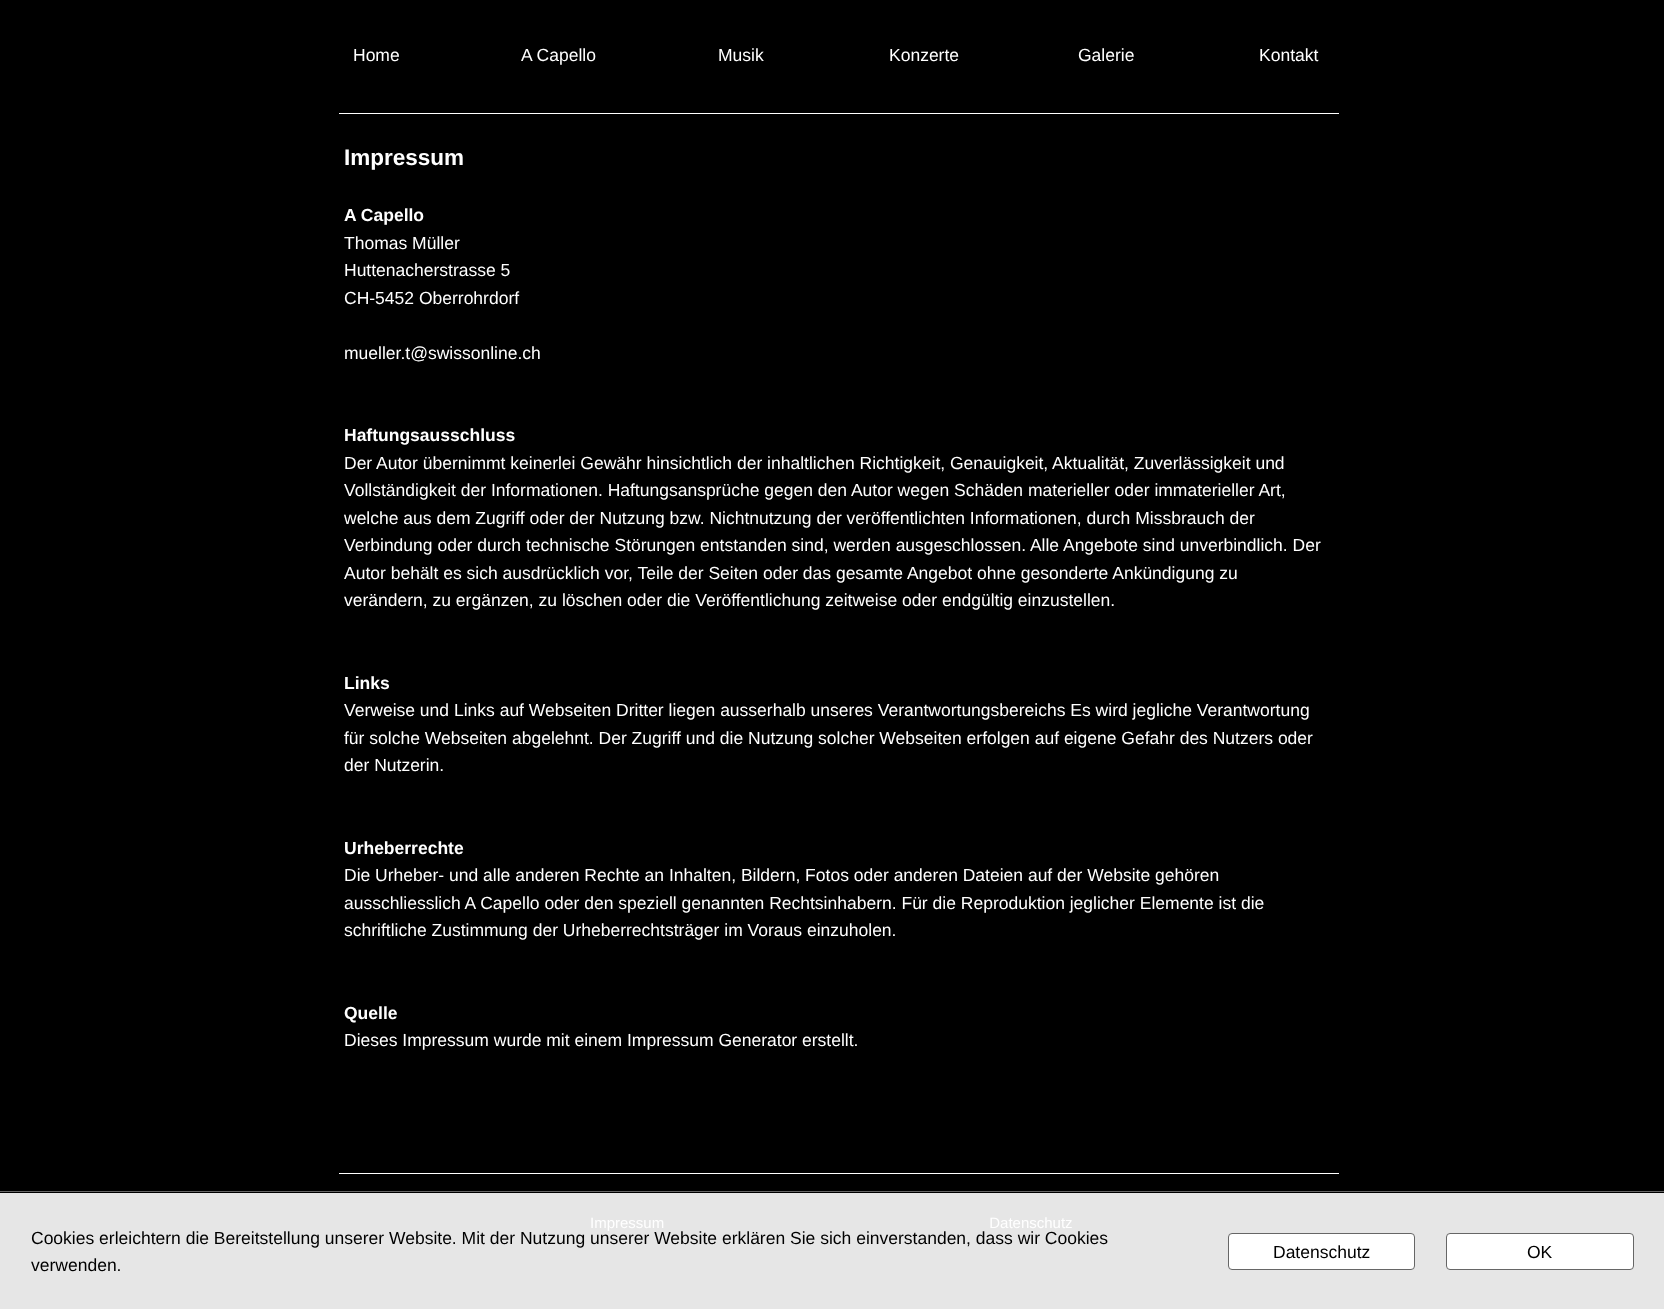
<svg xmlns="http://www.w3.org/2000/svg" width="1664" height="1309">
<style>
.a{font:17.5px Liberation Sans;fill:#fff}
.b{font:bold 22.5px Liberation Sans;fill:#fff}
.c{font:bold 17.5px Liberation Sans;fill:#fff}
.d{font:15px Liberation Sans;fill:#fff}
.e{font:17.5px Liberation Sans;fill:#000}
</style>
<rect width="100%" height="100%" fill="#000"/>
<path fill="#e6e6e6" d="M0 1193h1664v116H0z"/>
<path fill="#fff" d="M339 113h1000v1H339z"/>
<path fill="#fff" d="M339 1173h1000v1H339z"/>
<path fill="#666" d="M0 1191h1664v1H0z"/>
<rect fill="#fff" stroke="#666" x="1228.5" y="1233.5" width="186" height="36" rx="3.5"/>
<rect fill="#fff" stroke="#666" x="1446.5" y="1233.5" width="187" height="36" rx="3.5"/>
<text class="a" x="353" y="61">Home</text>
<text class="a" x="521" y="61">A Capello</text>
<text class="a" x="718" y="61">Musik</text>
<text class="a" x="889" y="61">Konzerte</text>
<text class="a" x="1078" y="61">Galerie</text>
<text class="a" x="1259" y="61">Kontakt</text>
<text class="b" x="344" y="165">Impressum</text>
<text class="c" x="344" y="221">A Capello</text>
<text class="a" x="344" y="249">Thomas Müller</text>
<text class="a" x="344" y="276">Huttenacherstrasse 5</text>
<text class="a" x="344" y="304">CH-5452 Oberrohrdorf</text>
<text class="a" x="344" y="359">mueller.t@swissonline.ch</text>
<text class="c" x="344" y="441">Haftungsausschluss</text>
<text class="a" x="344" y="469">Der Autor übernimmt keinerlei Gewähr hinsichtlich der inhaltlichen Richtigkeit, Genauigkeit, Aktualität, Zuverlässigkeit und</text>
<text class="a" x="344" y="496">Vollständigkeit der Informationen. Haftungsansprüche gegen den Autor wegen Schäden materieller oder immaterieller Art,</text>
<text class="a" x="344" y="524">welche aus dem Zugriff oder der Nutzung bzw. Nichtnutzung der veröffentlichten Informationen, durch Missbrauch der</text>
<text class="a" x="344" y="551">Verbindung oder durch technische Störungen entstanden sind, werden ausgeschlossen. Alle Angebote sind unverbindlich. Der</text>
<text class="a" x="344" y="579">Autor behält es sich ausdrücklich vor, Teile der Seiten oder das gesamte Angebot ohne gesonderte Ankündigung zu</text>
<text class="a" x="344" y="606">verändern, zu ergänzen, zu löschen oder die Veröffentlichung zeitweise oder endgültig einzustellen.</text>
<text class="c" x="344" y="689">Links</text>
<text class="a" x="344" y="716">Verweise und Links auf Webseiten Dritter liegen ausserhalb unseres Verantwortungsbereichs Es wird jegliche Verantwortung</text>
<text class="a" x="344" y="744">für solche Webseiten abgelehnt. Der Zugriff und die Nutzung solcher Webseiten erfolgen auf eigene Gefahr des Nutzers oder</text>
<text class="a" x="344" y="771">der Nutzerin.</text>
<text class="c" x="344" y="854">Urheberrechte</text>
<text class="a" x="344" y="881">Die Urheber- und alle anderen Rechte an Inhalten, Bildern, Fotos oder anderen Dateien auf der Website gehören</text>
<text class="a" x="344" y="909">ausschliesslich A Capello oder den speziell genannten Rechtsinhabern. Für die Reproduktion jeglicher Elemente ist die</text>
<text class="a" x="344" y="936">schriftliche Zustimmung der Urheberrechtsträger im Voraus einzuholen.</text>
<text class="c" x="344" y="1019">Quelle</text>
<text class="a" x="344" y="1046">Dieses Impressum wurde mit einem Impressum Generator erstellt.</text>
<text class="d" xml:space="preserve" x="590" y="1228">Impressum                                                                              Datenschutz</text>
<text class="e" x="31" y="1244">Cookies erleichtern die Bereitstellung unserer Website. Mit der Nutzung unserer Website erklären Sie sich einverstanden, dass wir Cookies</text>
<text class="e" x="31" y="1271">verwenden.</text>
<text class="e" x="1273" y="1258">Datenschutz</text>
<text class="e" x="1527" y="1258">OK</text>
</svg>
